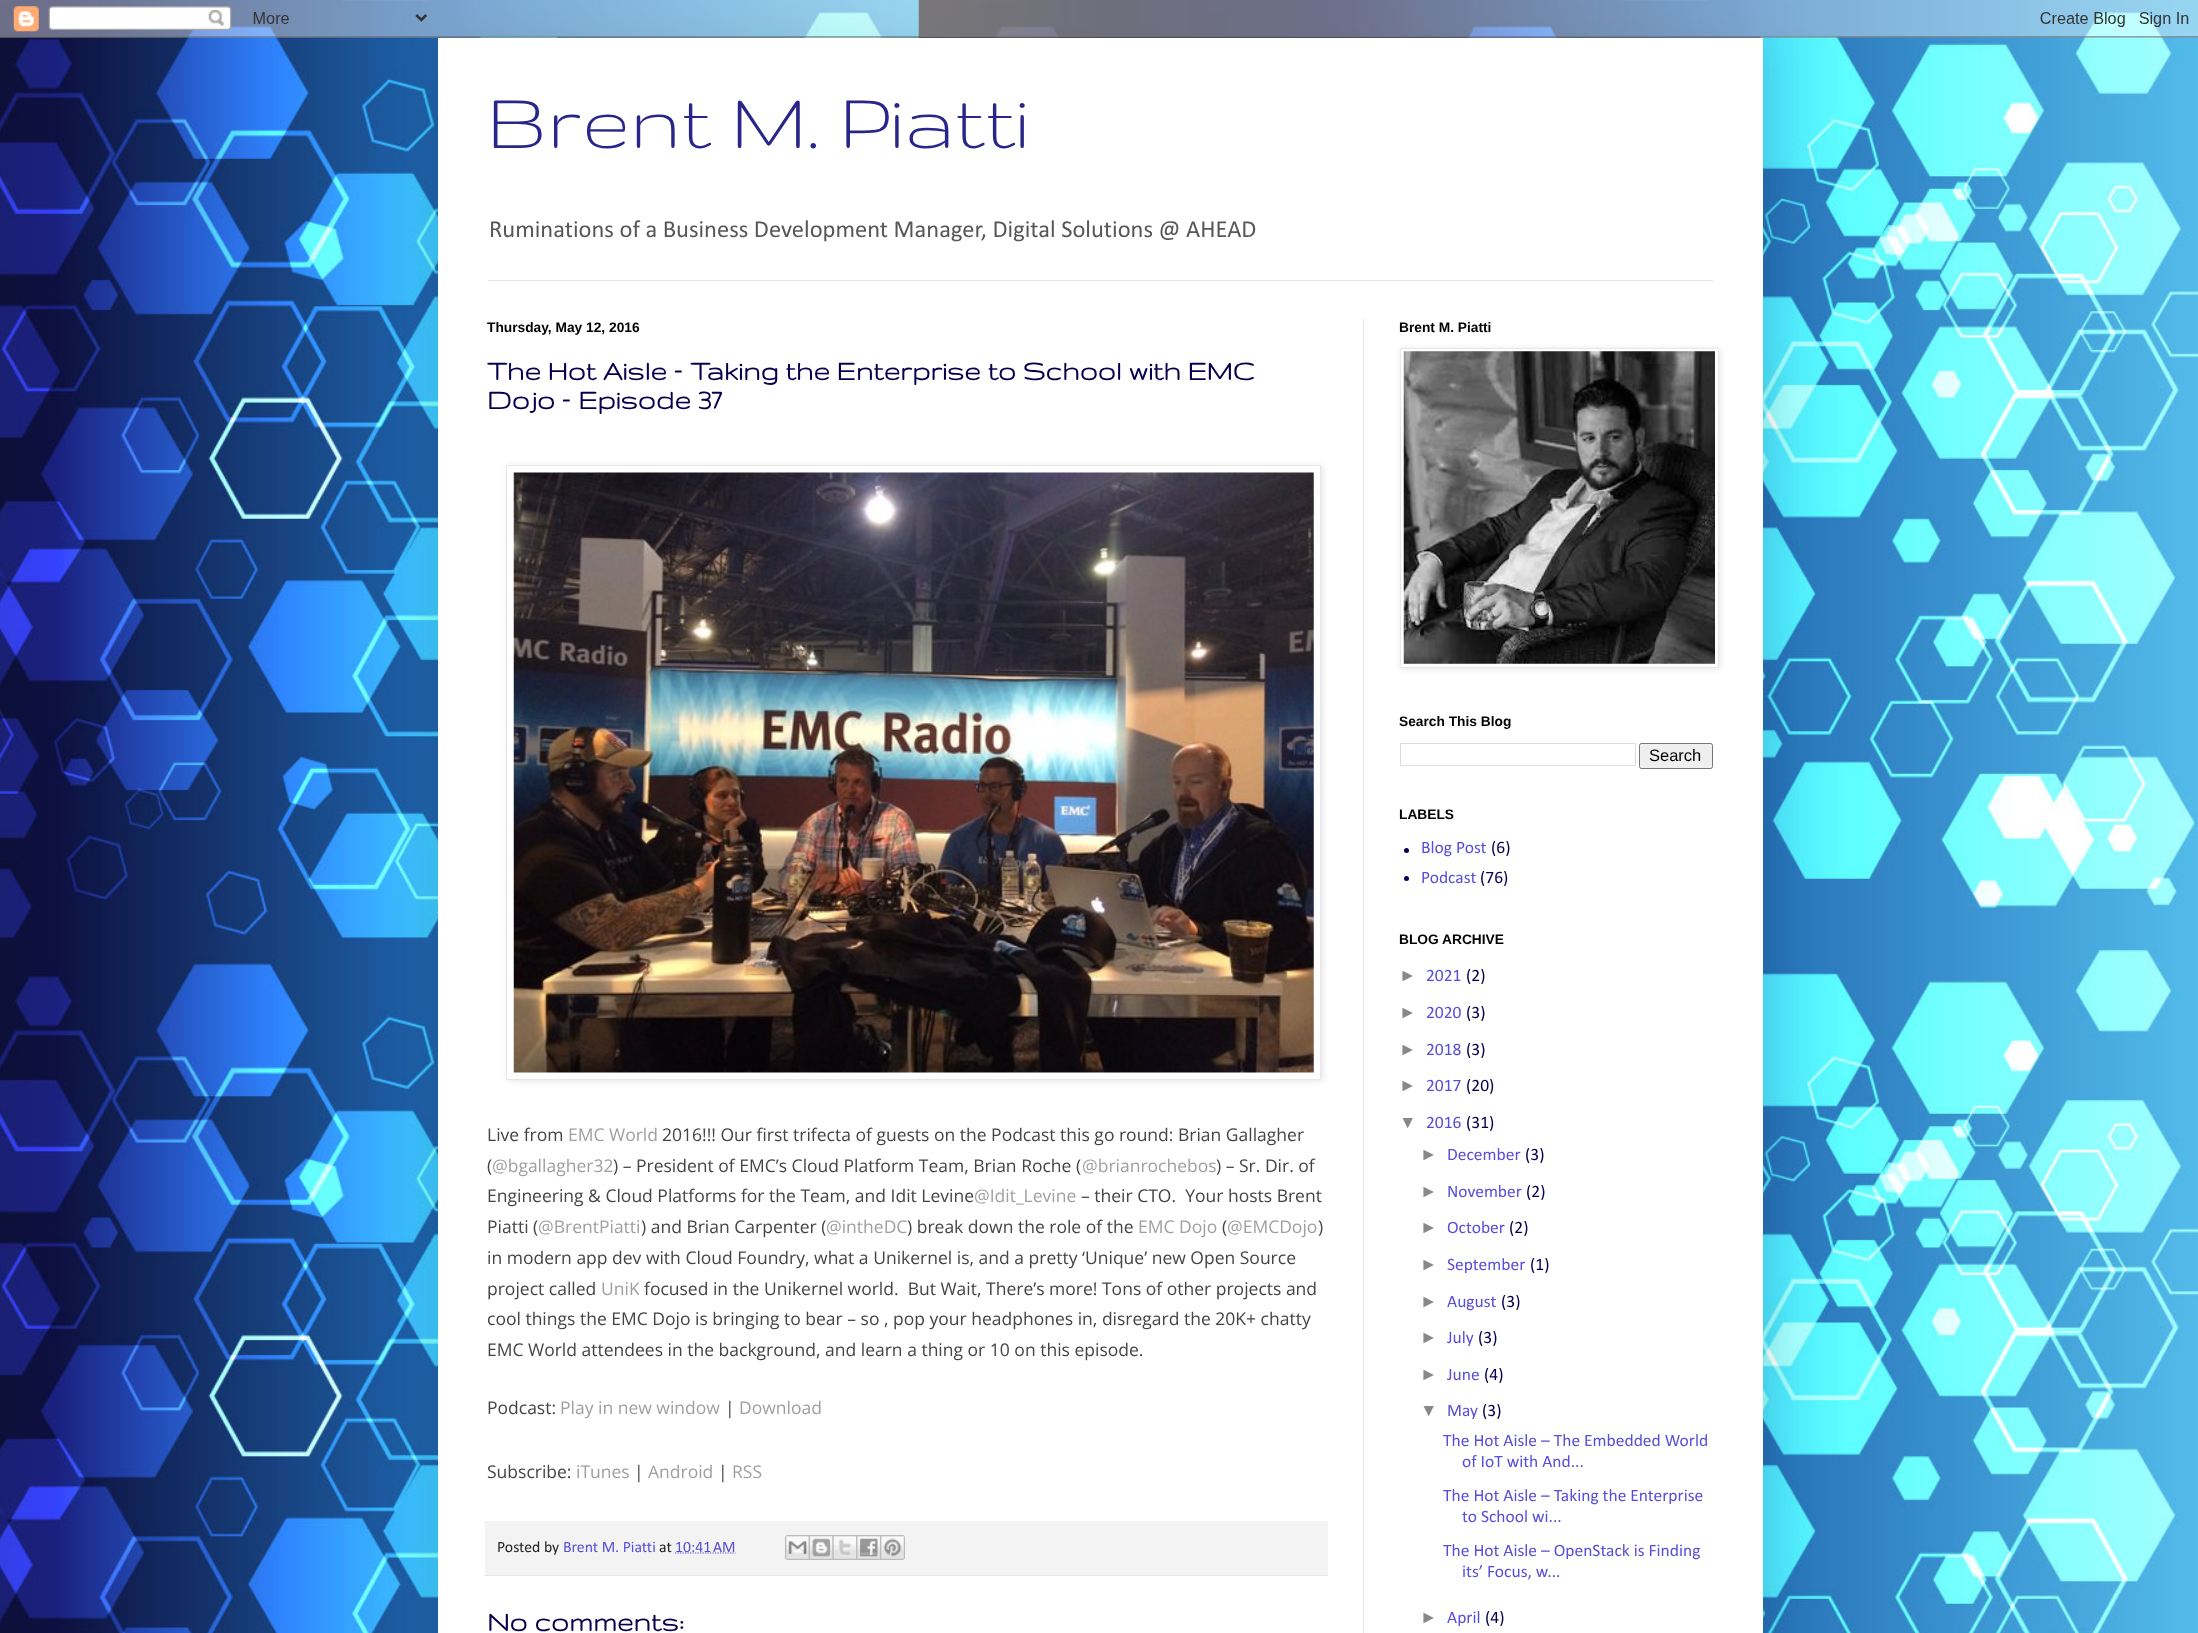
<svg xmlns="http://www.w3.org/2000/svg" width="2198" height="1633">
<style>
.a{font:87.5px Gruppo;fill:#292589}
.b{font:24.5px Calibri;fill:#575757}
.c{font:bold 13.75px Liberation Sans;fill:#000}
.d{font:bold 30px Gruppo;fill:#06004c}
.e{font:17.5px Open Sans;fill:#444}
.f{font:17.5px Open Sans;fill:#9f9f9f}
.g{font:15.75px Calibri;fill:#232323}
.h{font:15.75px Calibri;fill:#594ed7}
.i{font:16.5px Liberation Sans;fill:#000}
.j{font:17.5px Calibri;fill:#594ed7}
.k{font:17.5px Calibri;fill:#06004c}
.l{font:17.5px Liberation Sans;fill:#888}
</style>
<rect width="100%" height="100%" fill="#fff"/>
<image href="1.png" x="0" y="0" width="2198" height="1633"/>
<path fill="#00000026" filter="blur(25px)" d="M438 38h1325v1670H438z"/>
<image href="2.png" x="0" y="0" width="2198" height="38"/>
<path fill="#fff" d="M438 38h1325v1595H438z"/>
<path fill="#e7e7e7" d="M488 280h1225v1H488z"/>
<path fill="#e7e7e7" d="M1363 319h1v1314H1363z"/>
<path fill="#0000001a" filter="blur(3px)" d="M508 466h815v615H508z"/>
<path fill="#fff" stroke="#e7e7e7" d="M506.5 465.5h814v614H506.5z"/>
<image href="3.png" x="513" y="472" width="801" height="601"/>
<path fill="#f3f3f3" d="M485 1521h843v54H485z"/>
<path fill="#e7e7e7" d="M485 1575h843v1H485z"/>
<path fill="none" stroke="#594ed7" stroke-width="1.2" stroke-dasharray="1.25 1.25" d="M675 1553h60.5"/>
<image href="4.png" x="785" y="1535" width="24" height="25"/>
<image href="5.png" x="808" y="1535" width="25" height="25"/>
<image href="6.png" x="832" y="1535" width="25" height="25"/>
<image href="7.png" x="856" y="1535" width="24" height="25"/>
<image href="8.png" x="880" y="1535" width="25" height="25"/>
<path fill="#0000001a" filter="blur(3px)" d="M1401 349h319v320H1401z"/>
<path fill="#fff" stroke="#e7e7e7" d="M1400.5 348.5h318v319H1400.5z"/>
<image href="9.png" x="1403" y="351" width="312" height="313"/>
<path fill="none" stroke="#ddd" d="M1400.5 743.5h235v22H1400.5z"/>
<rect fill="#efefef" stroke="#767676" x="1639.5" y="743.5" width="73" height="25" rx="2"/>
<circle fill="#06004c" cx="1406.5" cy="850.5" r="2.5"/>
<circle fill="#06004c" cx="1406.5" cy="878.5" r="2.5"/>
<text class="a" x="487" y="148">Brent M. Piatti</text>
<text class="b" x="489" y="237">Ruminations of a Business Development Manager, Digital Solutions @ AHEAD</text>
<text class="c" x="487" y="332">Thursday, May 12, 2016</text>
<text class="d" x="487" y="380">The Hot Aisle – Taking the Enterprise to School with EMC</text>
<text class="d" x="487" y="409">Dojo – Episode 37</text>
<text class="e" x="487" y="1141">Live from</text>
<text class="f" x="568" y="1141">EMC World</text>
<text class="e" x="662" y="1141">2016!!! Our first trifecta of guests on the Podcast this go round: Brian Gallagher</text>
<text class="e" x="487" y="1172">(</text>
<text class="f" x="492" y="1172">@bgallagher32</text>
<text class="e" x="613" y="1172">) – President of EMC’s Cloud Platform Team, Brian Roche (</text>
<text class="f" x="1082" y="1172">@brianrochebos</text>
<text class="e" x="1216" y="1172">) – Sr. Dir. of</text>
<text class="e" x="487" y="1202">Engineering &amp; Cloud Platforms for the Team, and Idit Levine</text>
<text class="f" x="974" y="1202">@Idit_Levine</text>
<text class="e" xml:space="preserve" x="1081" y="1202">– their CTO.  Your hosts Brent</text>
<text class="e" x="487" y="1233">Piatti (</text>
<text class="f" x="538" y="1233">@BrentPiatti</text>
<text class="e" x="641" y="1233">) and Brian Carpenter (</text>
<text class="f" x="826" y="1233">@intheDC</text>
<text class="e" x="907" y="1233">) break down the role of the</text>
<text class="f" x="1138" y="1233">EMC Dojo</text>
<text class="e" x="1222" y="1233">(</text>
<text class="f" x="1227" y="1233">@EMCDojo</text>
<text class="e" x="1318" y="1233">)</text>
<text class="e" x="487" y="1264">in modern app dev with Cloud Foundry, what a Unikernel is, and a pretty ‘Unique’ new Open Source</text>
<text class="e" x="487" y="1295">project called</text>
<text class="f" x="601" y="1295">UniK</text>
<text class="e" xml:space="preserve" x="644" y="1295">focused in the Unikernel world.  But Wait, There’s more! Tons of other projects and</text>
<path fill="#fff" d="M639 1294h1v1H639z"/>
<text class="e" x="487" y="1325">cool things the EMC Dojo is bringing to bear – so , pop your headphones in, disregard the 20K+ chatty</text>
<text class="e" x="487" y="1356">EMC World attendees in the background, and learn a thing or 10 on this episode.</text>
<text class="e" x="487" y="1414">Podcast:</text>
<text class="f" x="560" y="1414">Play in new window</text>
<text class="e" x="725" y="1414">|</text>
<text class="f" x="739" y="1414">Download</text>
<text class="e" x="487" y="1478">Subscribe:</text>
<text class="f" x="576" y="1478">iTunes</text>
<text class="e" x="634" y="1478">|</text>
<text class="f" x="648" y="1478">Android</text>
<text class="e" x="718" y="1478">|</text>
<text class="f" x="732" y="1478">RSS</text>
<text class="g" x="497" y="1552">Posted by</text>
<text class="h" x="563" y="1552">Brent M. Piatti</text>
<text class="g" x="659" y="1552">at</text>
<text class="h" x="675" y="1552">10:41 AM</text>
<text class="d" x="487" y="1631">No comments:</text>
<text class="c" x="1399" y="332">Brent M. Piatti</text>
<text class="c" x="1399" y="726">Search This Blog</text>
<text class="i" x="1649" y="761">Search</text>
<text class="c" x="1399" y="819">LABELS</text>
<text class="j" x="1421" y="853">Blog Post</text>
<text class="k" x="1491" y="853">(6)</text>
<text class="j" x="1421" y="883">Podcast</text>
<text class="k" x="1480" y="883">(76)</text>
<text class="c" x="1399" y="944">BLOG ARCHIVE</text>
<text class="l" x="1399" y="981">►</text>
<text class="j" x="1426" y="981">2021</text>
<text class="k" x="1466" y="981">(2)</text>
<text class="l" x="1399" y="1018">►</text>
<text class="j" x="1426" y="1018">2020</text>
<text class="k" x="1466" y="1018">(3)</text>
<text class="l" x="1399" y="1055">►</text>
<text class="j" x="1426" y="1055">2018</text>
<text class="k" x="1466" y="1055">(3)</text>
<text class="l" x="1399" y="1091">►</text>
<text class="j" x="1426" y="1091">2017</text>
<text class="k" x="1466" y="1091">(20)</text>
<text class="l" x="1399" y="1128">▼</text>
<text class="j" x="1426" y="1128">2016</text>
<text class="k" x="1466" y="1128">(31)</text>
<text class="l" x="1420" y="1160">►</text>
<text class="j" x="1447" y="1160">December</text>
<text class="k" x="1525" y="1160">(3)</text>
<text class="l" x="1420" y="1197">►</text>
<text class="j" x="1447" y="1197">November</text>
<text class="k" x="1526" y="1197">(2)</text>
<text class="l" x="1420" y="1233">►</text>
<text class="j" x="1447" y="1233">October</text>
<text class="k" x="1509" y="1233">(2)</text>
<text class="l" x="1420" y="1270">►</text>
<text class="j" x="1447" y="1270">September</text>
<text class="k" x="1530" y="1270">(1)</text>
<text class="l" x="1420" y="1307">►</text>
<text class="j" x="1447" y="1307">August</text>
<text class="k" x="1501" y="1307">(3)</text>
<text class="l" x="1420" y="1343">►</text>
<text class="j" x="1447" y="1343">July</text>
<text class="k" x="1478" y="1343">(3)</text>
<text class="l" x="1420" y="1380">►</text>
<text class="j" x="1447" y="1380">June</text>
<text class="k" x="1484" y="1380">(4)</text>
<text class="l" x="1420" y="1416">▼</text>
<text class="j" x="1447" y="1416">May</text>
<text class="k" x="1482" y="1416">(3)</text>
<text class="j" x="1443" y="1446">The Hot Aisle – The Embedded World</text>
<text class="j" x="1462" y="1467">of IoT with And...</text>
<text class="j" x="1443" y="1501">The Hot Aisle – Taking the Enterprise</text>
<text class="j" x="1462" y="1522">to School wi...</text>
<text class="j" x="1443" y="1556">The Hot Aisle – OpenStack is Finding</text>
<text class="j" x="1462" y="1577">its’ Focus, w...</text>
<text class="l" x="1420" y="1623">►</text>
<text class="j" x="1447" y="1623">April</text>
<text class="k" x="1485" y="1623">(4)</text>
</svg>
